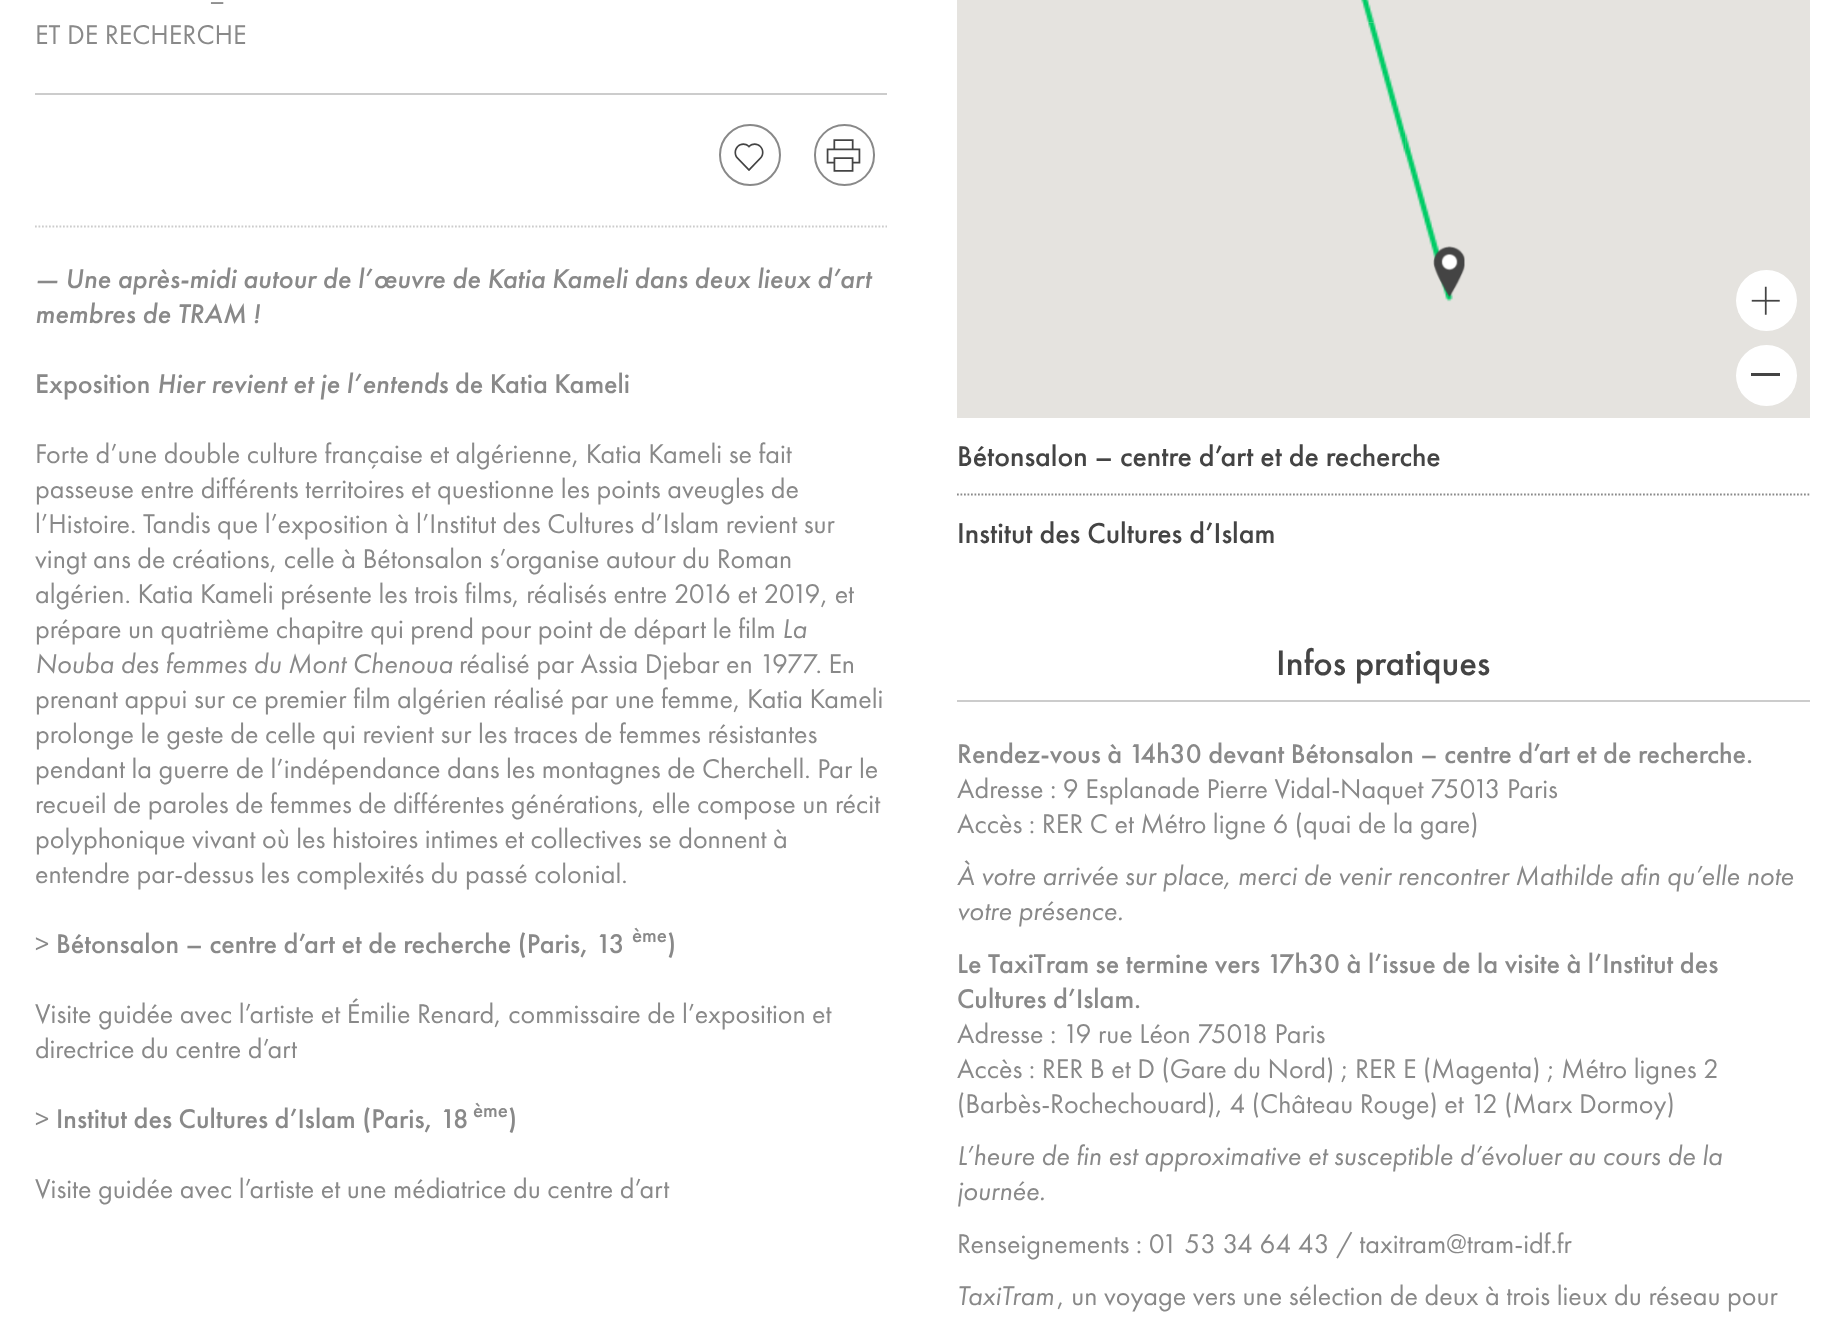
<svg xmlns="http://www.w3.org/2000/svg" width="1843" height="1334">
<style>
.a{font:28px Futura PT;fill:#898989}
.b{font:italic 500 28px Futura PT;fill:#898989}
.c{font:500 28px Futura PT;fill:#898989}
.d{font:italic 28px Futura PT;fill:#898989}
.e{font:500 21px Futura PT;fill:#898989}
.f{font:500 29.75px Futura PT;fill:#444}
.g{font:500 36.75px Futura PT;fill:#444}
</style>
<rect width="100%" height="100%" fill="#fff"/>
<path fill="#ccc" d="M35 93h852v2H35z"/>
<circle fill="none" stroke="#898989" stroke-width="2" cx="750" cy="155" r="30"/>
<image href="1.png" x="734" y="143" width="30" height="28"/>
<rect fill="none" stroke="#898989" stroke-width="2" x="815" y="125" width="59" height="60" rx="29.5"/>
<image href="2.png" x="826" y="139" width="35" height="33"/>
<path fill="none" stroke="#ccc" stroke-width="1.8" stroke-dasharray="1.75 1.75" d="M35 226.5h852"/>
<path fill="#e5e3df" d="M957 0h853v418H957z"/>
<image href="5.png" x="1405" y="132" width="48" height="170"/>
<image href="4.png" x="1368" y="22" width="38" height="132"/>
<image href="3.png" x="1361" y="0" width="14" height="23"/>
<image href="6.png" x="1433" y="246" width="32" height="52"/>
<circle fill="#fff" cx="1766.5" cy="300.5" r="30.5"/>
<image href="7.png" x="1751" y="286" width="29" height="29"/>
<circle fill="#fff" cx="1766.5" cy="375.5" r="30.5"/>
<path fill="#444" d="M1751 373h29v3H1751z"/>
<path fill="none" stroke="#898989" stroke-width="1.8" stroke-dasharray="1.75 1.75" d="M957 494.5h852.5"/>
<path fill="#ccc" d="M957 700h853v2H957z"/>
<text class="a" x="209" y="9">–</text>
<text class="a" x="35" y="44">ET DE RECHERCHE</text>
<text class="b" x="35" y="288">— Une après-midi autour de l’œuvre de Katia Kameli dans deux lieux d’art</text>
<text class="b" x="35" y="323">membres de TRAM !</text>
<text class="c" x="35" y="393">Exposition</text>
<text class="b" x="157" y="393">Hier revient et je l’entends</text>
<text class="c" x="455" y="393">de Katia Kameli</text>
<text class="a" x="35" y="463">Forte d’une double culture française et algérienne, Katia Kameli se fait</text>
<text class="a" x="35" y="498">passeuse entre différents territoires et questionne les points aveugles de</text>
<text class="a" x="35" y="533">l’Histoire. Tandis que l’exposition à l’Institut des Cultures d’Islam revient sur</text>
<text class="a" x="35" y="568">vingt ans de créations, celle à Bétonsalon s’organise autour du Roman</text>
<text class="a" x="35" y="603">algérien. Katia Kameli présente les trois films, réalisés entre 2016 et 2019, et</text>
<text class="a" x="35" y="638">prépare un quatrième chapitre qui prend pour point de départ le film</text>
<text class="d" x="782" y="638">La</text>
<text class="d" x="35" y="673">Nouba des femmes du Mont Chenoua</text>
<text class="a" x="459" y="673">réalisé par Assia Djebar en 1977. En</text>
<text class="a" x="35" y="708">prenant appui sur ce premier film algérien réalisé par une femme, Katia Kameli</text>
<text class="a" x="35" y="743">prolonge le geste de celle qui revient sur les traces de femmes résistantes</text>
<text class="a" x="35" y="778">pendant la guerre de l’indépendance dans les montagnes de Cherchell. Par le</text>
<text class="a" x="35" y="813">recueil de paroles de femmes de différentes générations, elle compose un récit</text>
<text class="a" x="35" y="848">polyphonique vivant où les histoires intimes et collectives se donnent à</text>
<text class="a" x="35" y="883">entendre par-dessus les complexités du passé colonial.</text>
<text class="a" x="35" y="953">&gt;</text>
<text class="c" x="56" y="953">Bétonsalon – centre d’art et de recherche (Paris, 13</text>
<text class="e" x="632" y="942">ème</text>
<text class="c" x="667" y="953">)</text>
<text class="a" x="35" y="1023">Visite guidée avec l’artiste et Émilie Renard, commissaire de l’exposition et</text>
<text class="a" x="35" y="1058">directrice du centre d’art</text>
<text class="a" x="35" y="1128">&gt;</text>
<text class="c" x="56" y="1128">Institut des Cultures d’Islam (Paris, 18</text>
<text class="e" x="473" y="1117">ème</text>
<text class="c" x="508" y="1128">)</text>
<text class="a" x="35" y="1198">Visite guidée avec l’artiste et une médiatrice du centre d’art</text>
<text class="f" x="957" y="466">Bétonsalon – centre d’art et de recherche</text>
<text class="f" x="957" y="543">Institut des Cultures d’Islam</text>
<text class="g" x="1276" y="675">Infos pratiques</text>
<text class="c" x="957" y="763">Rendez-vous à 14h30 devant Bétonsalon – centre d’art et de recherche.</text>
<text class="a" x="957" y="798">Adresse : 9 Esplanade Pierre Vidal-Naquet 75013 Paris</text>
<text class="a" x="957" y="833">Accès : RER C et Métro ligne 6 (quai de la gare)</text>
<text class="d" x="957" y="885">À votre arrivée sur place, merci de venir rencontrer Mathilde afin qu’elle note</text>
<text class="d" x="957" y="920">votre présence.</text>
<text class="c" x="957" y="973">Le TaxiTram se termine vers 17h30 à l’issue de la visite à l’Institut des</text>
<text class="c" x="957" y="1008">Cultures d’Islam.</text>
<text class="a" x="957" y="1043">Adresse : 19 rue Léon 75018 Paris</text>
<text class="a" x="957" y="1078">Accès : RER B et D (Gare du Nord) ; RER E (Magenta) ; Métro lignes 2</text>
<text class="a" x="957" y="1113">(Barbès-Rochechouard), 4 (Château Rouge) et 12 (Marx Dormoy)</text>
<text class="d" x="957" y="1165">L’heure de fin est approximative et susceptible d’évoluer au cours de la</text>
<text class="d" x="957" y="1200">journée.</text>
<text class="a" x="957" y="1253">Renseignements : 01 53 34 64 43 / taxitram@tram-idf.fr</text>
<text class="d" x="957" y="1305">TaxiTram</text>
<text class="a" x="1057" y="1305">, un voyage vers une sélection de deux à trois lieux du réseau pour</text>
</svg>
